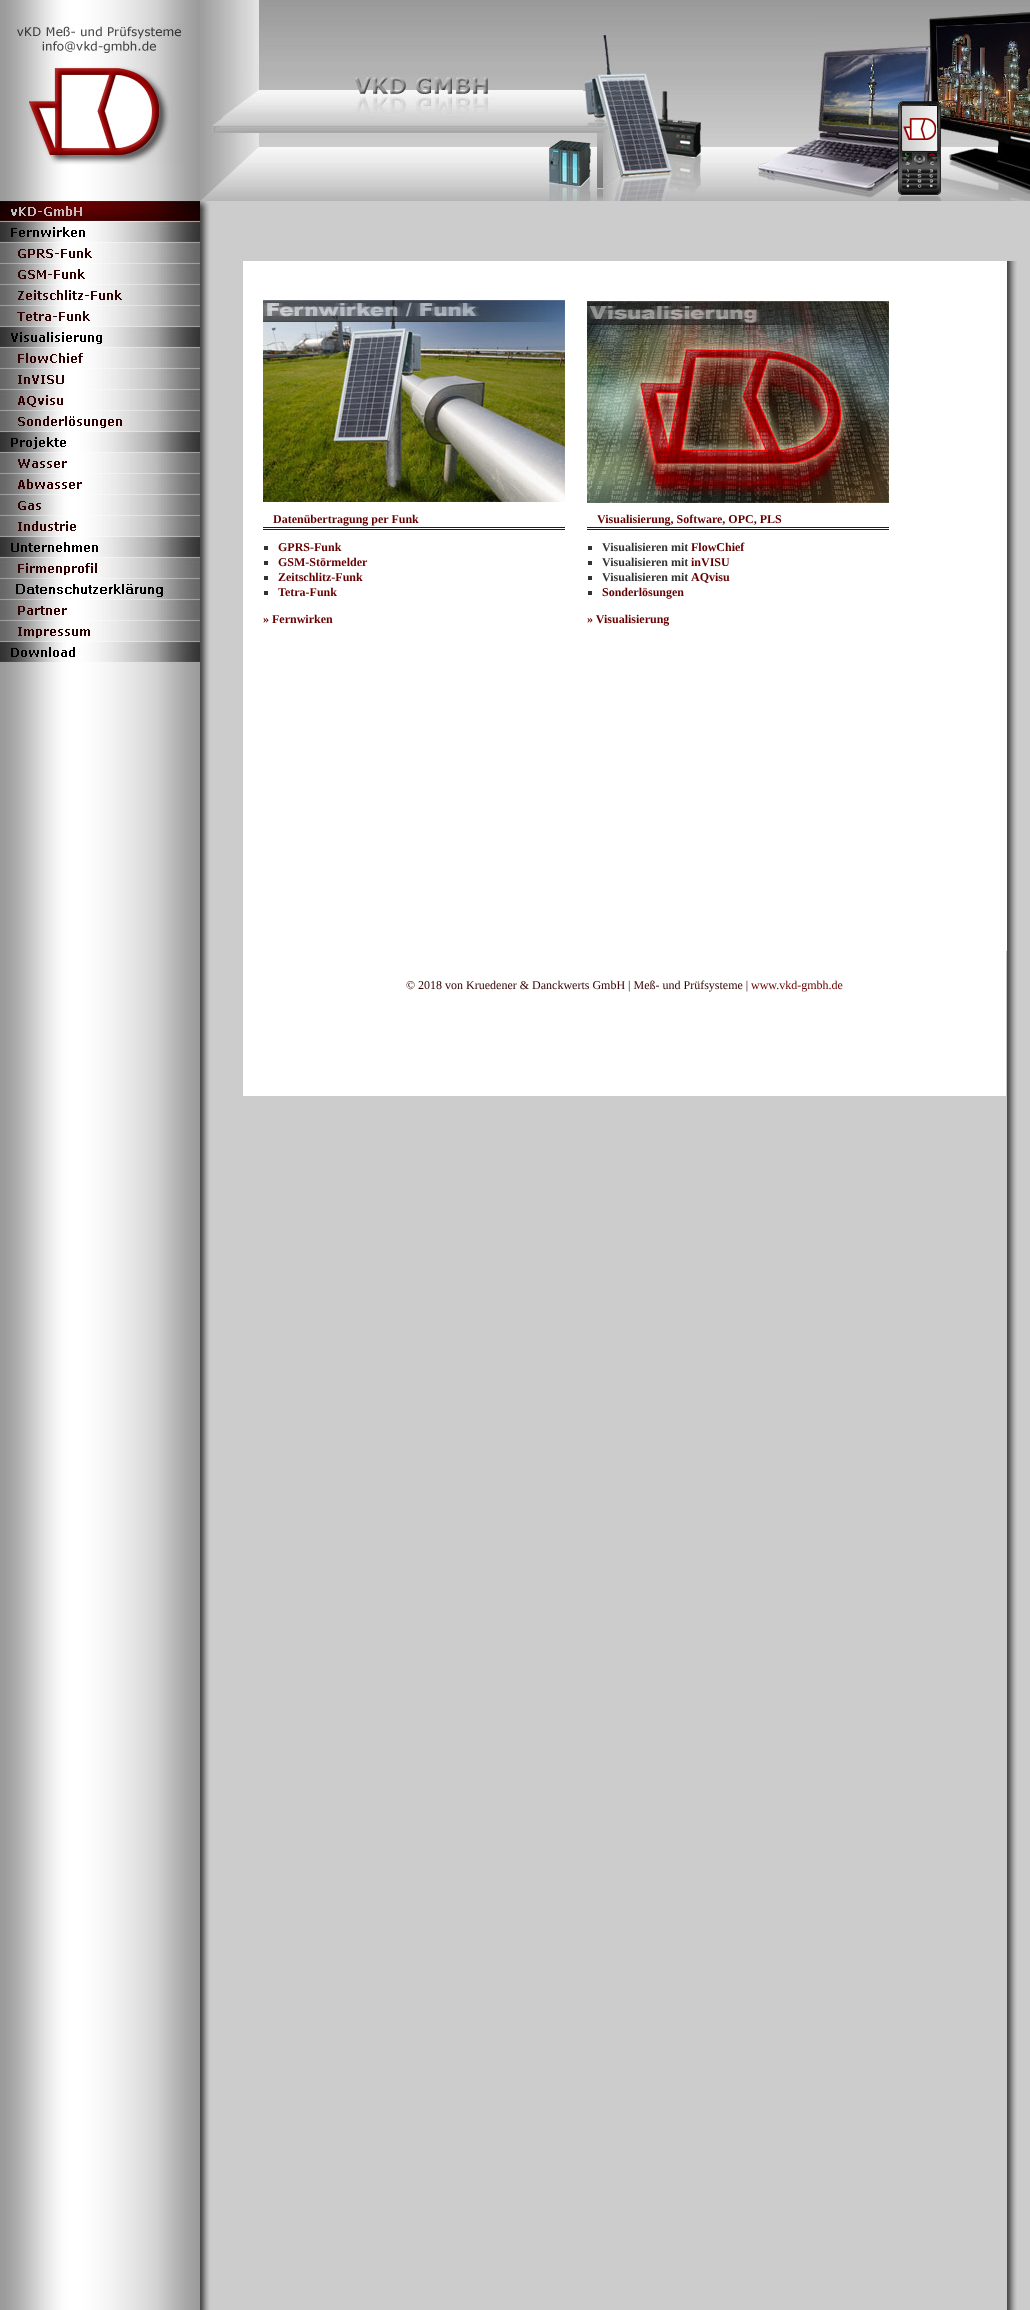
<svg xmlns="http://www.w3.org/2000/svg" width="1030" height="2310">
<style>
.a{font:bold 12px Liberation Serif;fill:#600}
.b{font:bold 12px Liberation Serif;fill:#333}
.c{font:12px Liberation Serif;fill:#300}
.d{font:12px Liberation Serif;fill:#600}
</style>
<rect width="100%" height="100%" fill="#ccc"/>
<image href="1.png" x="0" y="0" width="1017" height="2310"/>
<image href="2.png" x="17" y="24" width="167" height="141"/>
<image href="3.png" x="0" y="201" width="200" height="20"/>
<image href="4.png" x="0" y="222" width="200" height="20"/>
<image href="5.png" x="0" y="243" width="200" height="20"/>
<image href="6.png" x="0" y="264" width="200" height="20"/>
<image href="7.png" x="0" y="285" width="200" height="20"/>
<image href="8.png" x="0" y="306" width="200" height="20"/>
<image href="9.png" x="0" y="327" width="200" height="20"/>
<image href="10.png" x="0" y="432" width="200" height="20"/>
<image href="11.png" x="0" y="537" width="200" height="20"/>
<image href="12.png" x="0" y="642" width="200" height="20"/>
<image href="13.png" x="200" y="0" width="830" height="201"/>
<image href="14.png" x="223" y="73" width="360" height="45"/>
<image href="15.png" x="818" y="16" width="212" height="143"/>
<image href="16.png" x="200" y="201" width="10" height="8"/>
<path fill="#ccc" d="M1007 201h10v60H1007z"/>
<image href="17.png" x="0" y="348" width="200" height="20"/>
<image href="18.png" x="0" y="369" width="200" height="20"/>
<image href="19.png" x="0" y="390" width="200" height="20"/>
<image href="20.png" x="0" y="411" width="200" height="20"/>
<image href="21.png" x="0" y="453" width="200" height="20"/>
<image href="22.png" x="0" y="474" width="200" height="20"/>
<image href="23.png" x="0" y="495" width="200" height="20"/>
<image href="24.png" x="0" y="516" width="200" height="20"/>
<path fill="#fff" d="M243 261h764v690H243z"/>
<image href="25.png" x="263" y="300" width="302" height="202"/>
<image href="26.png" x="587" y="301" width="302" height="202"/>
<path fill="#600" d="M263 527h302v1H263z"/>
<path fill="#600" d="M263 529h302v1H263z"/>
<path fill="#333" d="M264 546h4v4H264z"/>
<path fill="#333" d="M264 561h4v4H264z"/>
<path fill="#333" d="M264 576h4v4H264z"/>
<path fill="#333" d="M264 591h4v4H264z"/>
<path fill="#600" d="M587 527h302v1H587z"/>
<path fill="#600" d="M587 529h302v1H587z"/>
<path fill="#333" d="M588 546h4v4H588z"/>
<path fill="#333" d="M588 561h4v4H588z"/>
<path fill="#333" d="M588 576h4v4H588z"/>
<path fill="#333" d="M588 591h4v4H588z"/>
<image href="27.png" x="0" y="558" width="200" height="20"/>
<image href="28.png" x="0" y="579" width="200" height="20"/>
<image href="29.png" x="0" y="600" width="200" height="20"/>
<image href="30.png" x="0" y="621" width="200" height="20"/>
<path fill="#fff" d="M243 951h763v145H243z"/>
<text class="a" x="273" y="523">Datenübertragung per Funk</text>
<text class="a" x="278" y="551">GPRS-Funk</text>
<text class="a" x="278" y="566">GSM-Störmelder</text>
<text class="a" x="278" y="581">Zeitschlitz-Funk</text>
<text class="a" x="278" y="596">Tetra-Funk</text>
<text class="a" x="263" y="623">» Fernwirken</text>
<text class="a" x="597" y="523">Visualisierung, Software, OPC, PLS</text>
<text class="b" x="602" y="551">Visualisieren mit</text>
<text class="a" x="691" y="551">FlowChief</text>
<text class="b" x="602" y="566">Visualisieren mit</text>
<text class="a" x="691" y="566">inVISU</text>
<text class="b" x="602" y="581">Visualisieren mit</text>
<text class="a" x="691" y="581">AQvisu</text>
<text class="a" x="602" y="596">Sonderlösungen</text>
<text class="a" x="587" y="623">» Visualisierung</text>
<text class="c" x="406" y="989">© 2018 von Kruedener &amp; Danckwerts GmbH | Meß- und Prüfsysteme |</text>
<text class="d" x="751" y="989">www.vkd-gmbh.de</text>
</svg>
